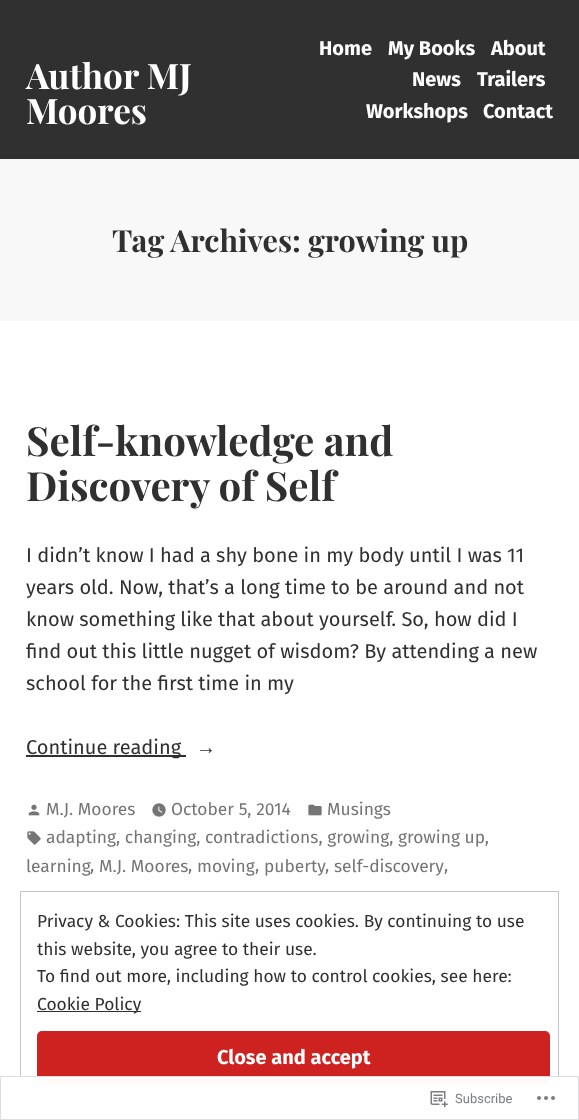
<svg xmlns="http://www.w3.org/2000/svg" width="579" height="1120">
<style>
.a{font:bold 35px Playfair Display;fill:#fff}
.b{font:bold 20px Fira Sans;fill:#fff}
.c{font:bold 30.5px Playfair Display;fill:#303030}
.d{font:bold 40.25px Playfair Display;fill:#303030}
.e{font:20px Fira Sans;fill:#303030}
.f{font:20px Liberation Serif;fill:#303030}
.g{font:17.4px Fira Sans;fill:#757575}
.h{font:17.4px Fira Sans;fill:#303030}
.i{font:13px Roboto;fill:#7b7f84}
</style>
<rect width="100%" height="100%" fill="#f8f8f8"/>
<path fill="#fff" d="M0 321h579v760H0z"/>
<path fill="#303030" d="M0 0h579v159H0z"/>
<path fill="#303030" d="M26 755h160v2H26z"/>
<image href="1.png" x="28" y="804" width="12" height="12"/>
<image href="2.png" x="152" y="803" width="14" height="14"/>
<image href="3.png" x="308" y="804" width="14" height="12"/>
<image href="4.png" x="27" y="831" width="14" height="14"/>
<path fill="#fff" d="M21 1081h537v18H21z"/>
<path fill="none" stroke="#c5c5c5" d="M20.5 891.5h538v208H20.5z"/>
<path fill="#303030" d="M37 1011h104v1H37z"/>
<rect fill="#cd2220" x="37" y="1031" width="513" height="52" rx="5"/>
<path fill="#fffffffa" d="M0 1076h579v44H0z"/>
<path fill="none" stroke="#dcdcdefa" d="M0.5 1076.5h578v43H0.5z"/>
<image href="5.png" x="430" y="1091" width="18" height="17"/>
<image href="6.png" x="537" y="1096" width="18" height="4"/>
<text class="a" x="26" y="89">Author MJ</text>
<text class="a" x="26" y="124">Moores</text>
<text class="b" x="319" y="55">Home</text>
<text class="b" x="388" y="55">My Books</text>
<text class="b" x="491" y="55">About</text>
<text class="b" x="412" y="86">News</text>
<text class="b" x="477" y="86">Trailers</text>
<text class="b" x="366" y="118">Workshops</text>
<text class="b" x="483" y="118">Contact</text>
<text class="c" x="112" y="252">Tag Archives: growing up</text>
<text class="d" x="26" y="456">Self-knowledge and</text>
<text class="d" x="26" y="501">Discovery of Self</text>
<text class="e" x="26" y="562">I didn’t know I had a shy bone in my body until I was 11</text>
<text class="e" x="26" y="594">years old. Now, that’s a long time to be around and not</text>
<text class="e" x="26" y="626">know something like that about yourself. So, how did I</text>
<text class="e" x="26" y="658">find out this little nugget of wisdom? By attending a new</text>
<text class="e" x="26" y="690">school for the first time in my</text>
<text class="e" x="26" y="754">Continue reading</text>
<text class="f" x="196" y="754">→</text>
<text class="g" x="46" y="815">M.J. Moores</text>
<text class="g" x="171" y="815">October 5, 2014</text>
<text class="g" x="327" y="815">Musings</text>
<text class="g" x="46" y="843">adapting, changing, contradictions, growing, growing up,</text>
<text class="g" x="26" y="872">learning</text>
<text class="g" x="90" y="871">,</text>
<text class="g" x="99" y="872">M.J. Moores</text>
<text class="g" x="188" y="871">,</text>
<text class="g" x="197" y="872">moving</text>
<text class="g" x="255" y="871">,</text>
<text class="g" x="264" y="872">puberty</text>
<text class="g" x="325" y="871">,</text>
<text class="g" x="334" y="872">self-discovery</text>
<text class="g" x="444" y="871">,</text>
<text class="h" x="37" y="927">Privacy &amp; Cookies: This site uses cookies. By continuing to use</text>
<text class="h" x="37" y="955">this website, you agree to their use.</text>
<text class="h" x="37" y="982">To find out more, including how to control cookies, see here:</text>
<text class="h" x="37" y="1010">Cookie Policy</text>
<text class="b" x="217" y="1064">Close and accept</text>
<text class="i" x="455" y="1103">Subscribe</text>
</svg>
